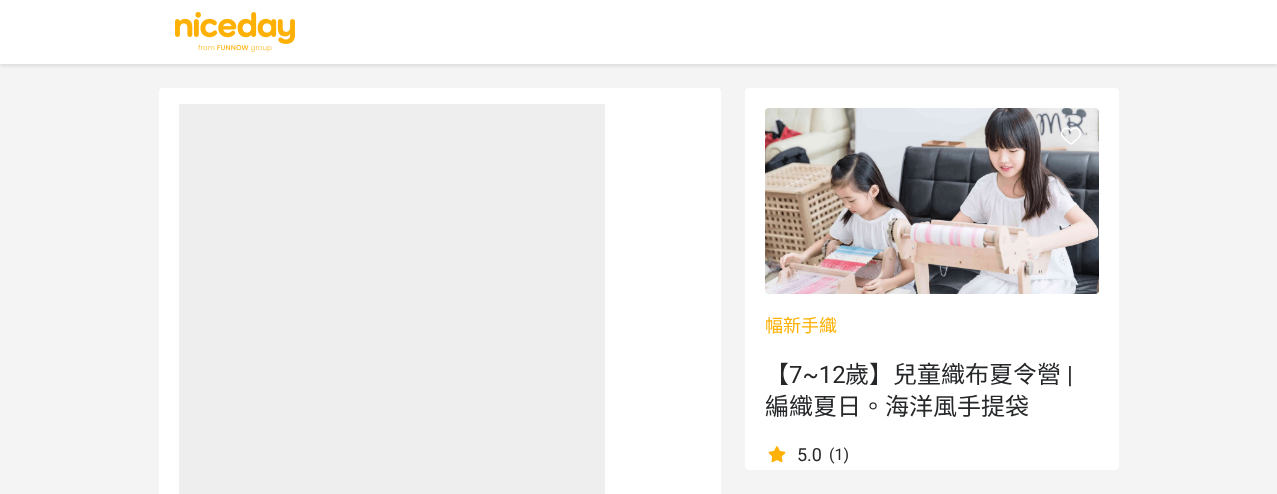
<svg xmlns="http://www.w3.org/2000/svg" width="1277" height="494">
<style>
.a{font:100 18px Noto Sans TC;fill:#ffb005}
.b{font:100 24px Noto Sans TC;fill:#252729}
.c{font:24px Roboto;fill:#252729}
.d{font:18px Roboto;fill:#252729}
.e{font:16px Roboto;fill:#252729}
</style>
<defs>
<clipPath id="clip1"><path d="M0 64h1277v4H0z"/></clipPath>
</defs>
<rect width="100%" height="100%" fill="#fff"/>
<path fill="#f4f4f5" d="M0 64h1277v430H0z"/>
<g clip-path="url(#clip1)">
<path fill="#0000001a" filter="blur(2px)" d="M0 2h1277v64H0z"/>
</g>
<image href="1.png" x="175" y="12" width="120" height="40"/>
<rect fill="#fff" x="159" y="88" width="562" height="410" rx="4"/>
<path fill="#eee" d="M179 104h426v390H179z"/>
<rect fill="#fff" x="745" y="88" width="374" height="382" rx="4"/>
<image href="2.png" x="765" y="108" width="334" height="186"/>
<image href="3.png" x="1061" y="127" width="20" height="18"/>
<image href="4.png" x="768" y="446" width="18" height="17"/>
<text class="a" x="765" y="332">幅新手織</text>
<text class="b" x="765" y="383">【</text>
<text class="c" x="789" y="383">7~12</text>
<text class="b" x="845" y="383">歲】兒童織布夏令營</text>
<text class="c" x="1067" y="383">|</text>
<text class="b" x="765" y="415">編織夏日。海洋風手提袋</text>
<text class="d" x="797" y="461">5.0</text>
<text class="e" x="829" y="460">(1)</text>
</svg>
